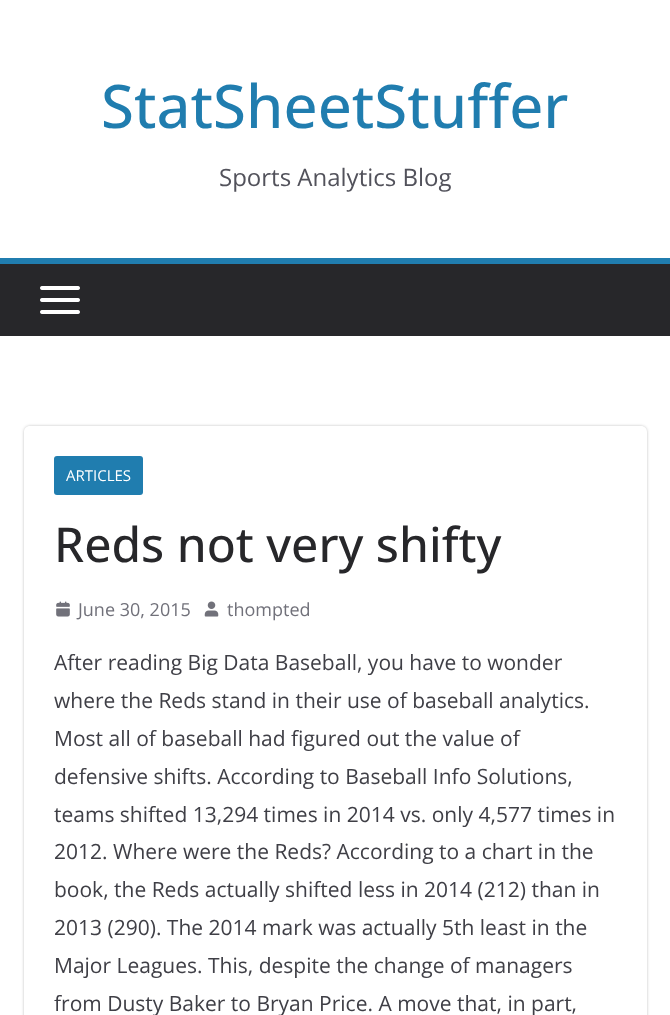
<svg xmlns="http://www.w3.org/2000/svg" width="670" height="1015">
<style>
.a{font:500 60px Open Sans;fill:#207daf}
.b{font:24px Open Sans;fill:#52525b}
.c{font:15px Open Sans;fill:#fff}
.d{font:500 48px Open Sans;fill:#27272a}
.e{font:18px Open Sans;fill:#71717a}
.f{font:21px Open Sans;fill:#3f3f46}
</style>
<defs>
<clipPath id="clip1"><path d="M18 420h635v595h-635zm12 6h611c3.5 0 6 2.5 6 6v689c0 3.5-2.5 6-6 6h-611c-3.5 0-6-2.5-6-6v-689c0-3.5 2.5-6 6-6z" clip-rule="evenodd"/></clipPath>
</defs>
<rect width="100%" height="100%" fill="#fff"/>
<path fill="#27272a" d="M0 264h670v72H0z"/>
<path fill="#207daf" d="M0 258h670v6H0z"/>
<image href="1.png" x="40" y="286" width="40" height="28"/>
<g clip-path="url(#clip1)">
<rect fill="#0000003d" filter="blur(1.5px)" x="24" y="426" width="623" height="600" rx="6"/>
</g>
<rect fill="#207daf" x="54" y="456" width="89" height="39" rx="3"/>
<image href="2.png" x="56" y="601" width="14" height="16"/>
<image href="3.png" x="204" y="601" width="15" height="16"/>
<text class="a" x="101" y="128">StatSheetStuffer</text>
<text class="b" x="219" y="186">Sports Analytics Blog</text>
<text class="c" x="66" y="481">ARTICLES</text>
<text class="d" x="54" y="562">Reds not very shifty</text>
<text class="e" x="78" y="616">June 30, 2015</text>
<text class="e" x="227" y="616">thompted</text>
<text class="f" x="54" y="670">After reading Big Data Baseball, you have to wonder</text>
<text class="f" x="54" y="708">where the Reds stand in their use of baseball analytics.</text>
<text class="f" x="54" y="746">Most all of baseball had figured out the value of</text>
<text class="f" x="54" y="784">defensive shifts. According to Baseball Info Solutions,</text>
<text class="f" x="54" y="822">teams shifted 13,294 times in 2014 vs. only 4,577 times in</text>
<text class="f" x="54" y="859">2012. Where were the Reds? According to a chart in the</text>
<text class="f" x="54" y="897">book, the Reds actually shifted less in 2014 (212) than in</text>
<text class="f" x="54" y="935">2013 (290). The 2014 mark was actually 5th least in the</text>
<text class="f" x="54" y="973">Major Leagues. This, despite the change of managers</text>
<text class="f" x="54" y="1011">from Dusty Baker to Bryan Price. A move that, in part,</text>
</svg>
